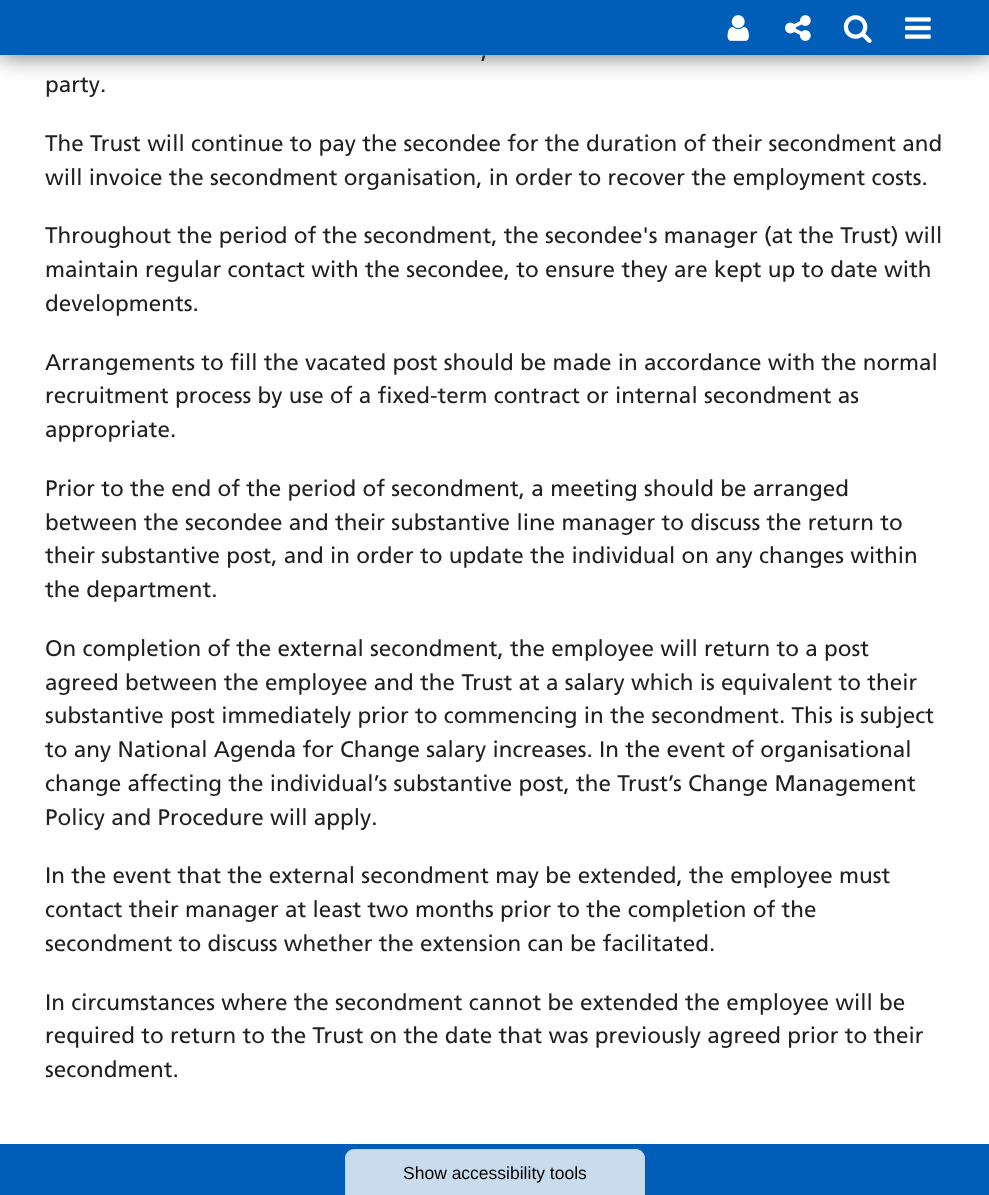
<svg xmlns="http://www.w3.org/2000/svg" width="989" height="1195">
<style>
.a{font:22.5px Frutiger;fill:#231f20}
.b{font:17.5px Liberation Sans;fill:#000}
</style>
<rect width="100%" height="100%" fill="#fff"/>
<path fill="#00000099" filter="blur(12.5px)" d="M0 0h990v55H0z"/>
<path fill="#005eb8" d="M0 0h989v55H0z"/>
<image href="1.png" x="727" y="15" width="22" height="26"/>
<image href="2.png" x="785" y="15" width="26" height="26"/>
<image href="3.png" x="843" y="15" width="29" height="28"/>
<image href="4.png" x="905" y="17" width="26" height="22"/>
<path fill="#005eb8" d="M0 1144h989v51H0z"/>
<path fill="#c8dced" d="M355 1149h280c5.5 0 10 4.5 10 10v36h-300v-36c0-5.5 4.5-10 10-10z"/>
<path fill="#bad3e7" fill-rule="evenodd" d="M355 1149h280c6 0 10 4 10 10v36h-300v-36c0-6 4-10 10-10zm0 1h280c5 0 9 4 9 9v36h-298v-36c0-5 4-9 9-9z"/>
<text class="a" x="481" y="58">,</text>
<text class="a" x="45" y="92">party.</text>
<text class="a" x="45" y="151">The Trust will continue to pay the secondee for the duration of their secondment and</text>
<text class="a" x="45" y="185">will invoice the secondment organisation, in order to recover the employment costs.</text>
<text class="a" x="45" y="243">Throughout the period of the secondment, the secondee's manager (at the Trust) will</text>
<text class="a" x="45" y="277">maintain regular contact with the secondee, to ensure they are kept up to date with</text>
<text class="a" x="45" y="311">developments.</text>
<text class="a" x="45" y="370">Arrangements to fill the vacated post should be made in accordance with the normal</text>
<text class="a" x="45" y="403">recruitment process by use of a fixed-term contract or internal secondment as</text>
<text class="a" x="45" y="437">appropriate.</text>
<text class="a" x="45" y="496">Prior to the end of the period of secondment, a meeting should be arranged</text>
<text class="a" x="45" y="530">between the secondee and their substantive line manager to discuss the return to</text>
<text class="a" x="45" y="563">their substantive post, and in order to update the individual on any changes within</text>
<text class="a" x="45" y="597">the department.</text>
<text class="a" x="45" y="656">On completion of the external secondment, the employee will return to a post</text>
<text class="a" x="45" y="690">agreed between the employee and the Trust at a salary which is equivalent to their</text>
<text class="a" x="45" y="723">substantive post immediately prior to commencing in the secondment. This is subject</text>
<text class="a" x="45" y="757">to any National Agenda for Change salary increases. In the event of organisational</text>
<text class="a" x="45" y="791">change affecting the individual’s substantive post, the Trust’s Change Management</text>
<text class="a" x="45" y="825">Policy and Procedure will apply.</text>
<text class="a" x="45" y="883">In the event that the external secondment may be extended, the employee must</text>
<text class="a" x="45" y="917">contact their manager at least two months prior to the completion of the</text>
<text class="a" x="45" y="951">secondment to discuss whether the extension can be facilitated.</text>
<text class="a" x="45" y="1010">In circumstances where the secondment cannot be extended the employee will be</text>
<text class="a" x="45" y="1043">required to return to the Trust on the date that was previously agreed prior to their</text>
<text class="a" x="45" y="1077">secondment.</text>
<text class="b" x="403" y="1179">Show accessibility tools</text>
</svg>
